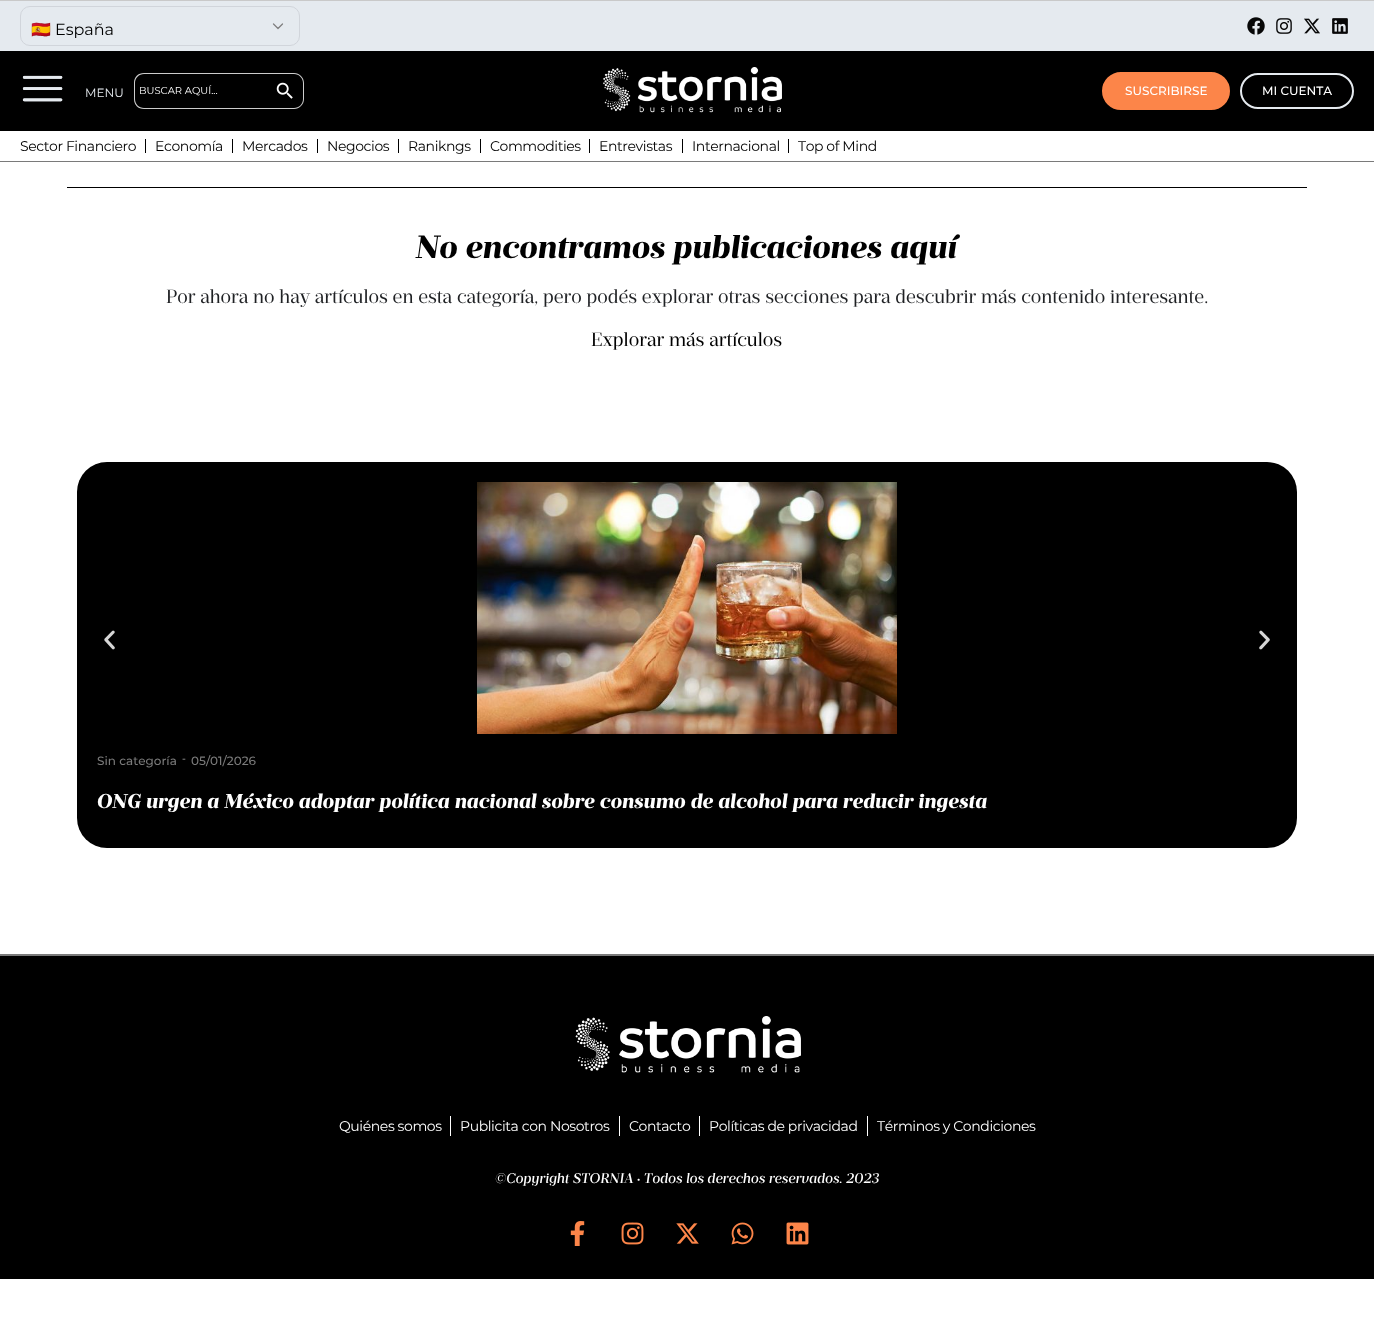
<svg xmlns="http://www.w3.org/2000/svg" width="1374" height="1323">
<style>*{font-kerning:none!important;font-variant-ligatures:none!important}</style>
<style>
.a{font:16px Noto Color Emoji;fill:#000}
.b{font:16px Montserrat;fill:#000}
.c{font:12px Montserrat;fill:#e5eaef}
.d{font:10px Montserrat;fill:#fff}
.e{font:500 12px Montserrat;fill:#fff}
.f{font:14px Montserrat;letter-spacing:-0.4px;fill:#000}
.g{font:italic 800 32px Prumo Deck;fill:#000}
.h{font:19px Prumo Deck;fill:#1f2124}
.i{font:19px Prumo Deck;fill:#000}
.j{font:500 12px Montserrat;fill:#7a7a7a}
.k{font:600 10px Montserrat;fill:#7a7a7a}
.l{font:italic 800 20px Prumo Deck;fill:#fff}
.m{font:14px Montserrat;letter-spacing:-0.4px;fill:#fff}
.n{font:italic 500 14px Prumo Deck;fill:#fff}
</style>
<defs>
<clipPath id="clip1"><path d="M97 482h1180v330H97z"/></clipPath>
</defs>
<rect width="100%" height="100%" fill="#fff"/>
<path fill="#e5eaef" d="M0 1h1374v50H0z"/>
<path fill="#c9c9c9" d="M0 0h1374v1H0z"/>
<path fill="none" stroke="#808080" stroke-width="1.3" stroke-linecap="round" stroke-linejoin="round" d="M282.5 24l-4.5 4.5l-4.5-4.5"/>
<rect fill="none" stroke="#d1d5db" x="20.5" y="6.5" width="279" height="39" rx="9.5"/>
<image href="1.png" x="1247" y="17" width="18" height="18"/>
<image href="2.png" x="1276" y="18" width="16" height="16"/>
<image href="3.png" x="1304" y="18" width="16" height="16"/>
<image href="4.png" x="1332" y="18" width="16" height="16"/>
<path fill="#000" d="M0 51h1374v80H0z"/>
<image href="5.png" x="22" y="75" width="41" height="27"/>
<path fill="#ccc" fill-rule="evenodd" d="M144 73h124v36h-124c-6 0-10-4-10-10v-16c0-6 4-10 10-10zm0 1h124v34h-124c-5 0-9-4-9-9v-16c0-5 4-9 9-9z"/>
<path fill="#ccc" fill-rule="evenodd" d="M268 73h26c5.5 0 10 4.5 10 10v16c0 5.5-4.5 10-10 10h-26zm0 1h26c5 0 9 4 9 9v16c0 5-4 9-9 9h-26z"/>
<image href="6.png" x="276" y="82" width="17" height="17"/>
<image href="7.png" x="603" y="67" width="179" height="46"/>
<rect fill="#fc8549" stroke="#fc8549" stroke-width="3" x="1103.5" y="73.5" width="125" height="35" rx="17.5"/>
<rect fill="none" stroke="#e5eaef" stroke-width="2" x="1241" y="74" width="112" height="34" rx="17"/>
<path fill="#7a7a7a" d="M0 161h1374v1H0z"/>
<path fill="#000" d="M145 139h1v14H145z"/>
<path fill="#000" d="M232 139h1v14H232z"/>
<path fill="#000" d="M317 139h1v14H317z"/>
<path fill="#000" d="M398 139h1v14H398z"/>
<path fill="#000" d="M480 139h1v14H480z"/>
<path fill="#000" d="M589 139h1v14H589z"/>
<path fill="#000" d="M682 139h1v14H682z"/>
<path fill="#000" d="M788 139h1v14H788z"/>
<path fill="#000" d="M67 187h1240v1H67z"/>
<rect fill="#000" x="77" y="462" width="1220" height="386" rx="30"/>
<image href="8.png" x="104" y="630" width="11" height="20"/>
<image href="9.png" x="1259" y="630" width="11" height="20"/>
<image href="10.png" x="477" y="482" width="420" height="252"/>
<path fill="#000" d="M0 956h1374v323H0z"/>
<path fill="#7a7a7a" d="M0 954h1374v2H0z"/>
<image href="11.png" x="575" y="1016" width="226" height="57"/>
<path fill="#fff" d="M450 1116h1v20H450z"/>
<path fill="#fff" d="M619 1116h1v20H619z"/>
<path fill="#fff" d="M699 1116h1v20H699z"/>
<path fill="#fff" d="M867 1116h1v20H867z"/>
<image href="12.png" x="570" y="1221" width="15" height="25"/>
<image href="13.png" x="621" y="1222" width="23" height="23"/>
<image href="14.png" x="676" y="1223" width="23" height="21"/>
<image href="15.png" x="731" y="1222" width="23" height="23"/>
<image href="16.png" x="786" y="1222" width="23" height="23"/>
<text class="a" x="31" y="35">🇪🇸</text>
<text class="b" x="55" y="35">España</text>
<text class="c" x="85" y="97">MENU</text>
<text class="d" x="139" y="94">BUSCAR AQUÍ...</text>
<text class="e" x="1125" y="95">SUSCRIBIRSE</text>
<text class="e" x="1262" y="95">MI CUENTA</text>
<text class="f" x="20" y="151">Sector Financiero</text>
<text class="f" x="155" y="151">Economía</text>
<text class="f" x="242" y="151">Mercados</text>
<text class="f" x="327" y="151">Negocios</text>
<text class="f" x="408" y="151">Ranikngs</text>
<text class="f" x="490" y="151">Commodities</text>
<text class="f" x="599" y="151">Entrevistas</text>
<text class="f" x="692" y="151">Internacional</text>
<text class="f" x="798" y="151">Top of Mind</text>
<text class="g" x="416" y="258">No encontramos publicaciones aquí</text>
<text class="h" x="166" y="303">Por ahora no hay artículos en esta categoría, pero podés explorar otras secciones para descubrir más contenido</text>
<text class="h" x="1110" y="303">interesante.</text>
<text class="i" x="591" y="346">Explorar más artículos</text>
<text class="j" x="97" y="765">Sin categoría</text>
<text class="k" x="182" y="762">-</text>
<text class="j" x="191" y="765">05/01/2026</text>
<g clip-path="url(#clip1)">
<text class="l" x="97" y="808">ONG urgen a México adoptar política nacional sobre consumo de alcohol para reducir ingesta</text>
</g>
<text class="m" x="339" y="1131">Quiénes somos</text>
<text class="m" x="460" y="1131">Publicita con Nosotros</text>
<text class="m" x="629" y="1131">Contacto</text>
<text class="m" x="709" y="1131">Políticas de privacidad</text>
<text class="m" x="877" y="1131">Términos y Condiciones</text>
<text class="n" x="495" y="1183">©Copyright STORNIA • Todos los derechos reservados. 2023</text>
</svg>
